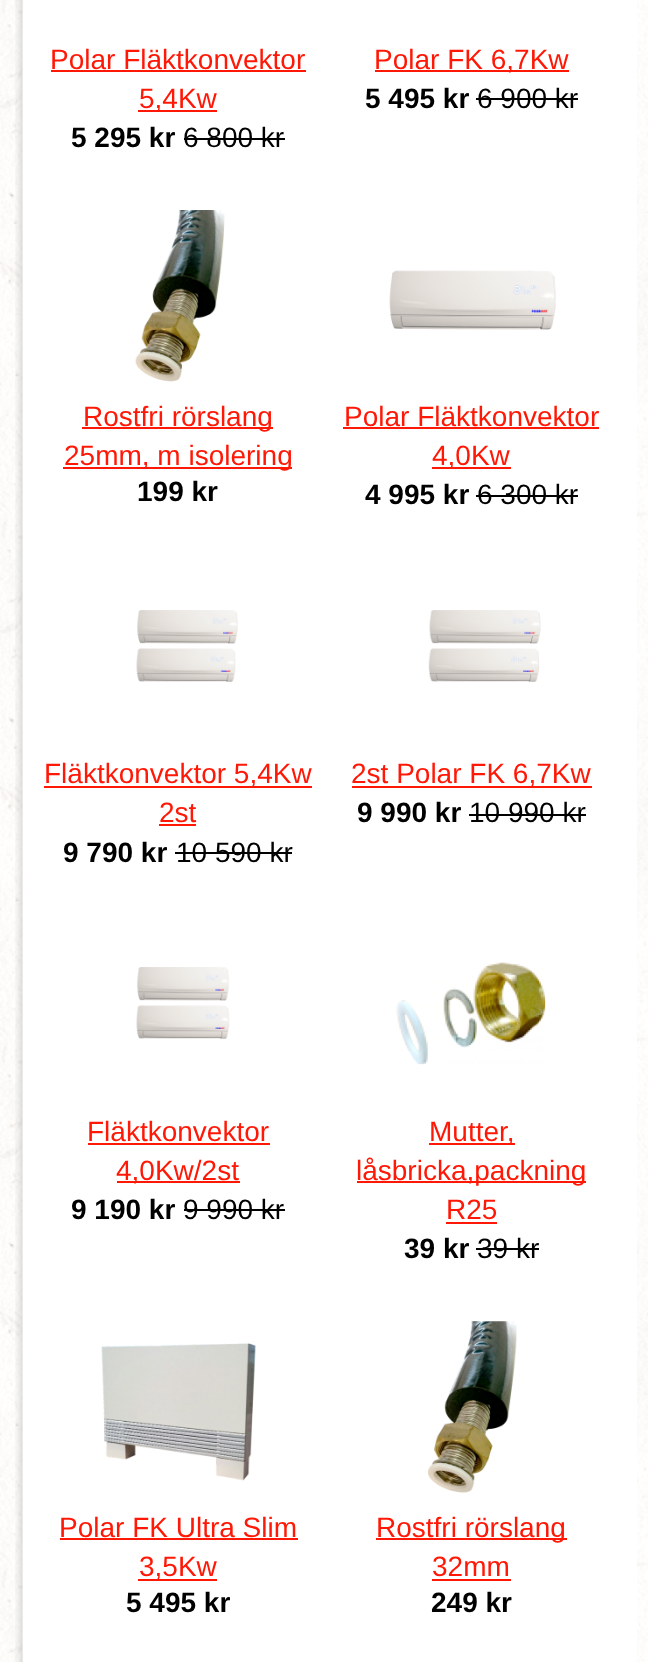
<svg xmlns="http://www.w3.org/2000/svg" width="648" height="1662">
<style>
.a{font:28px Liberation Sans;fill:#ff1806}
.b{font:bold 28px Liberation Sans;fill:#000}
.c{font:28px Liberation Sans;fill:#000}
</style>
<rect width="100%" height="100%" fill="#fff"/>
<image href="1.png" x="0" y="0" width="648" height="1662"/>
<image href="2.png" x="15" y="0" width="622" height="1662"/>
<path fill="#fff" d="M23 11h1v1634H23z"/>
<path fill="#ff1806" d="M51 70h255v2H51z"/>
<path fill="#ff1806" d="M138 110h79v2H138z"/>
<path fill="#000" d="M184 138h101v2H184z"/>
<path fill="#ff1806" d="M375 70h194v2H375z"/>
<path fill="#000" d="M476 98h102v2H476z"/>
<image href="3.png" x="135" y="210" width="90" height="172"/>
<path fill="#ff1806" d="M82 427h191v2H82z"/>
<path fill="#ff1806" d="M63 467h229v2H63z"/>
<image href="4.png" x="389" y="270" width="167" height="60"/>
<path fill="#ff1806" d="M343 427h256v2H343z"/>
<path fill="#ff1806" d="M432 467h79v2H432z"/>
<path fill="#000" d="M476 495h102v2H476z"/>
<image href="5.png" x="136" y="610" width="102" height="72"/>
<path fill="#ff1806" d="M44 786h268v2H44z"/>
<path fill="#ff1806" d="M159 824h37v2H159z"/>
<path fill="#000" d="M175 852h117v2H175z"/>
<image href="6.png" x="428" y="610" width="113" height="72"/>
<path fill="#ff1806" d="M352 786h240v2H352z"/>
<path fill="#000" d="M469 814h117v2H469z"/>
<image href="7.png" x="136" y="967" width="94" height="72"/>
<path fill="#ff1806" d="M88 1143h182v2H88z"/>
<path fill="#ff1806" d="M117 1181h123v2H117z"/>
<path fill="#000" d="M184 1209h101v2H184z"/>
<image href="8.png" x="396" y="962" width="150" height="103"/>
<path fill="#ff1806" d="M429 1143h86v2H429z"/>
<path fill="#ff1806" d="M357 1181h229v2H357z"/>
<path fill="#ff1806" d="M446 1222h51v2H446z"/>
<path fill="#000" d="M476 1248h63v2H476z"/>
<image href="9.png" x="101" y="1343" width="155" height="138"/>
<path fill="#ff1806" d="M60 1538h238v2H60z"/>
<path fill="#ff1806" d="M138 1579h79v2H138z"/>
<image href="10.png" x="427" y="1321" width="90" height="172"/>
<path fill="#ff1806" d="M376 1538h191v2H376z"/>
<path fill="#ff1806" d="M432 1579h79v2H432z"/>
<text class="a" x="50" y="69">Polar Fläktkonvektor</text>
<text class="a" x="139" y="108">5,4Kw</text>
<text class="b" x="71" y="147">5 295 kr</text>
<text class="c" x="183" y="147">6 800 kr</text>
<text class="a" x="374" y="69">Polar FK 6,7Kw</text>
<text class="b" x="365" y="108">5 495 kr</text>
<text class="c" x="477" y="108">6 900 kr</text>
<text class="a" x="83" y="426">Rostfri rörslang</text>
<text class="a" x="64" y="465">25mm, m isolering</text>
<text class="b" x="137" y="501">199 kr</text>
<text class="a" x="344" y="426">Polar Fläktkonvektor</text>
<text class="a" x="432" y="465">4,0Kw</text>
<text class="b" x="365" y="504">4 995 kr</text>
<text class="c" x="477" y="504">6 300 kr</text>
<text class="a" x="44" y="783">Fläktkonvektor 5,4Kw</text>
<text class="a" x="159" y="822">2st</text>
<text class="b" x="63" y="862">9 790 kr</text>
<text class="c" x="176" y="862">10 590 kr</text>
<text class="a" x="351" y="783">2st Polar FK 6,7Kw</text>
<text class="b" x="357" y="822">9 990 kr</text>
<text class="c" x="469" y="822">10 990 kr</text>
<text class="a" x="87" y="1141">Fläktkonvektor</text>
<text class="a" x="116" y="1180">4,0Kw/2st</text>
<text class="b" x="71" y="1219">9 190 kr</text>
<text class="c" x="183" y="1219">9 990 kr</text>
<text class="a" x="429" y="1141">Mutter,</text>
<text class="a" x="356" y="1180">låsbricka,packning</text>
<text class="a" x="446" y="1219">R25</text>
<text class="b" x="404" y="1258">39 kr</text>
<text class="c" x="477" y="1258">39 kr</text>
<text class="a" x="59" y="1537">Polar FK Ultra Slim</text>
<text class="a" x="139" y="1576">3,5Kw</text>
<text class="b" x="126" y="1612">5 495 kr</text>
<text class="a" x="376" y="1537">Rostfri rörslang</text>
<text class="a" x="432" y="1576">32mm</text>
<text class="b" x="431" y="1612">249 kr</text>
</svg>
